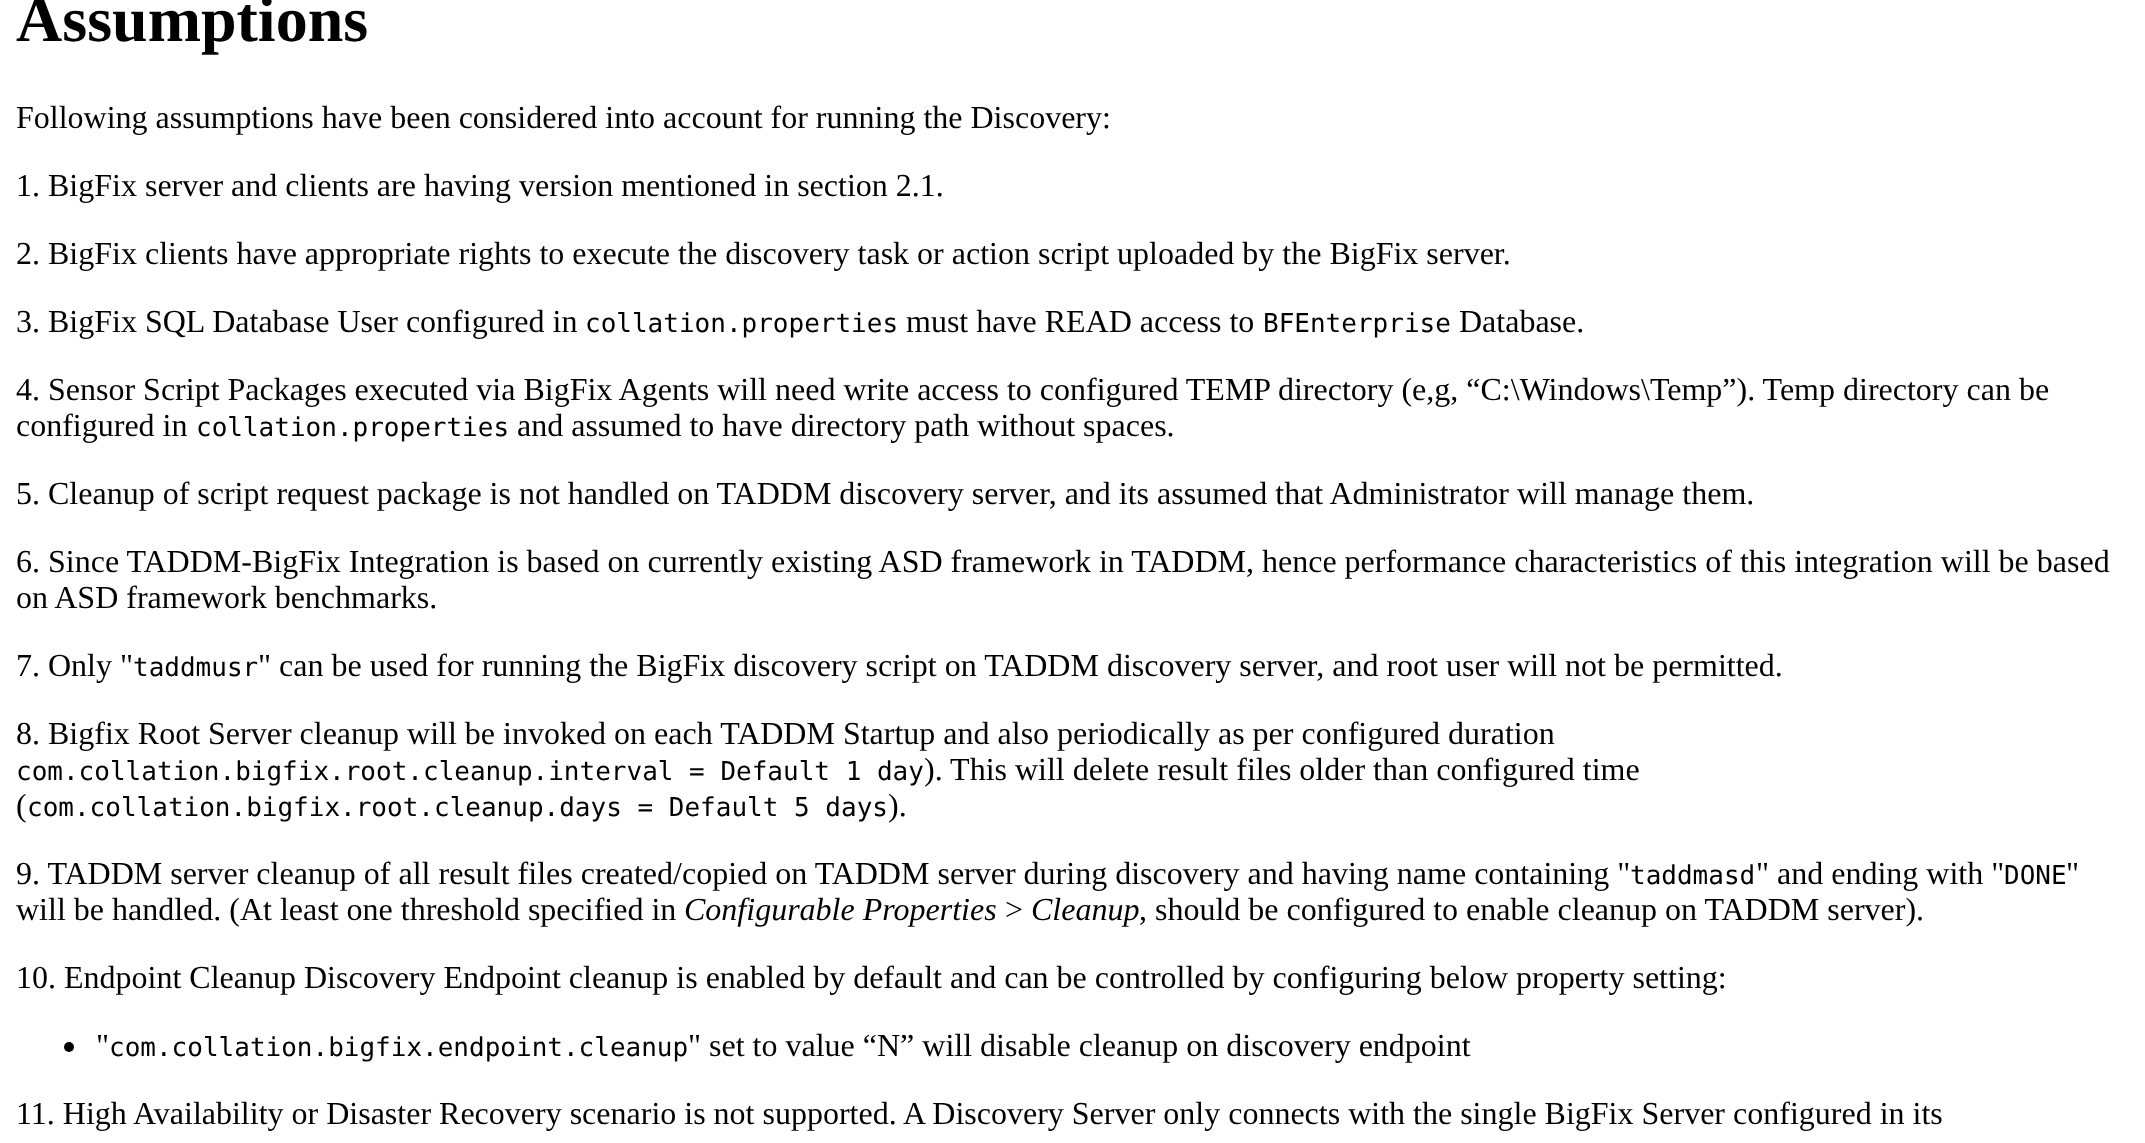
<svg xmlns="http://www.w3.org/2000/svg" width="2145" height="1143">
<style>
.a{font:bold 64px Liberation Serif;fill:#000}
.b{font:32px Liberation Serif;fill:#000}
.c{font:26px DejaVu Sans Mono;fill:#000}
.d{font:italic 32px Liberation Serif;fill:#000}
</style>
<rect width="100%" height="100%" fill="#fff"/>
<circle fill="#000" cx="69" cy="1047" r="5"/>
<text class="a" x="16" y="41">Assumptions</text>
<text class="b" x="16" y="128">Following assumptions have been considered into account for running the Discovery:</text>
<text class="b" x="16" y="196">1. BigFix server and clients are having version mentioned in section 2.1.</text>
<text class="b" x="16" y="264">2. BigFix clients have appropriate rights to execute the discovery task or action script uploaded by the BigFix server.</text>
<text class="b" x="16" y="332">3. BigFix SQL Database User configured in</text>
<text class="c" x="585" y="332">collation.properties</text>
<text class="b" x="906" y="332">must have READ access to</text>
<text class="c" x="1263" y="332">BFEnterprise</text>
<text class="b" x="1459" y="332">Database.</text>
<text class="b" x="16" y="400">4. Sensor Script Packages executed via BigFix Agents will need write access to configured TEMP directory (e,g, “C:\Windows\Temp”). Temp directory can be</text>
<text class="b" x="16" y="436">configured in</text>
<text class="c" x="196" y="436">collation.properties</text>
<text class="b" x="517" y="436">and assumed to have directory path without spaces.</text>
<text class="b" x="16" y="504">5. Cleanup of script request package is not handled on TADDM discovery server, and its assumed that Administrator will manage them.</text>
<text class="b" x="16" y="572">6. Since TADDM-BigFix Integration is based on currently existing ASD framework in TADDM, hence performance characteristics of this integration will be based</text>
<text class="b" x="16" y="608">on ASD framework benchmarks.</text>
<text class="b" x="16" y="676">7. Only "</text>
<text class="c" x="133" y="676">taddmusr</text>
<text class="b" x="258" y="676">" can be used for running the BigFix discovery script on TADDM discovery server, and root user will not be permitted.</text>
<text class="b" x="16" y="744">8. Bigfix Root Server cleanup will be invoked on each TADDM Startup and also periodically as per configured duration</text>
<text class="c" x="16" y="780">com.collation.bigfix.root.cleanup.interval = Default 1 day</text>
<text class="b" x="924" y="780">). This will delete result files older than configured time</text>
<text class="b" x="16" y="816">(</text>
<text class="c" x="27" y="816">com.collation.bigfix.root.cleanup.days = Default 5 days</text>
<text class="b" x="888" y="816">).</text>
<text class="b" x="16" y="884">9. TADDM server cleanup of all result files created/copied on TADDM server during discovery and having name containing "</text>
<text class="c" x="1630" y="884">taddmasd</text>
<text class="b" x="1756" y="884">" and ending with "</text>
<text class="c" x="2004" y="884">DONE</text>
<text class="b" x="2066" y="884">"</text>
<text class="b" x="16" y="920">will be handled. (At least one threshold specified in</text>
<text class="d" x="684" y="920">Configurable Properties</text>
<text class="b" x="1005" y="920">&gt;</text>
<text class="d" x="1031" y="920">Cleanup</text>
<text class="b" x="1139" y="920">, should be configured to enable cleanup on TADDM server).</text>
<text class="b" x="16" y="988">10. Endpoint Cleanup Discovery Endpoint cleanup is enabled by default and can be controlled by configuring below property setting:</text>
<text class="b" x="96" y="1056">"</text>
<text class="c" x="109" y="1056">com.collation.bigfix.endpoint.cleanup</text>
<text class="b" x="688" y="1056">" set to value “N” will disable cleanup on discovery endpoint</text>
<text class="b" x="16" y="1124">11. High Availability or Disaster Recovery scenario is not supported. A Discovery Server only connects with the single BigFix Server configured in its</text>
</svg>
